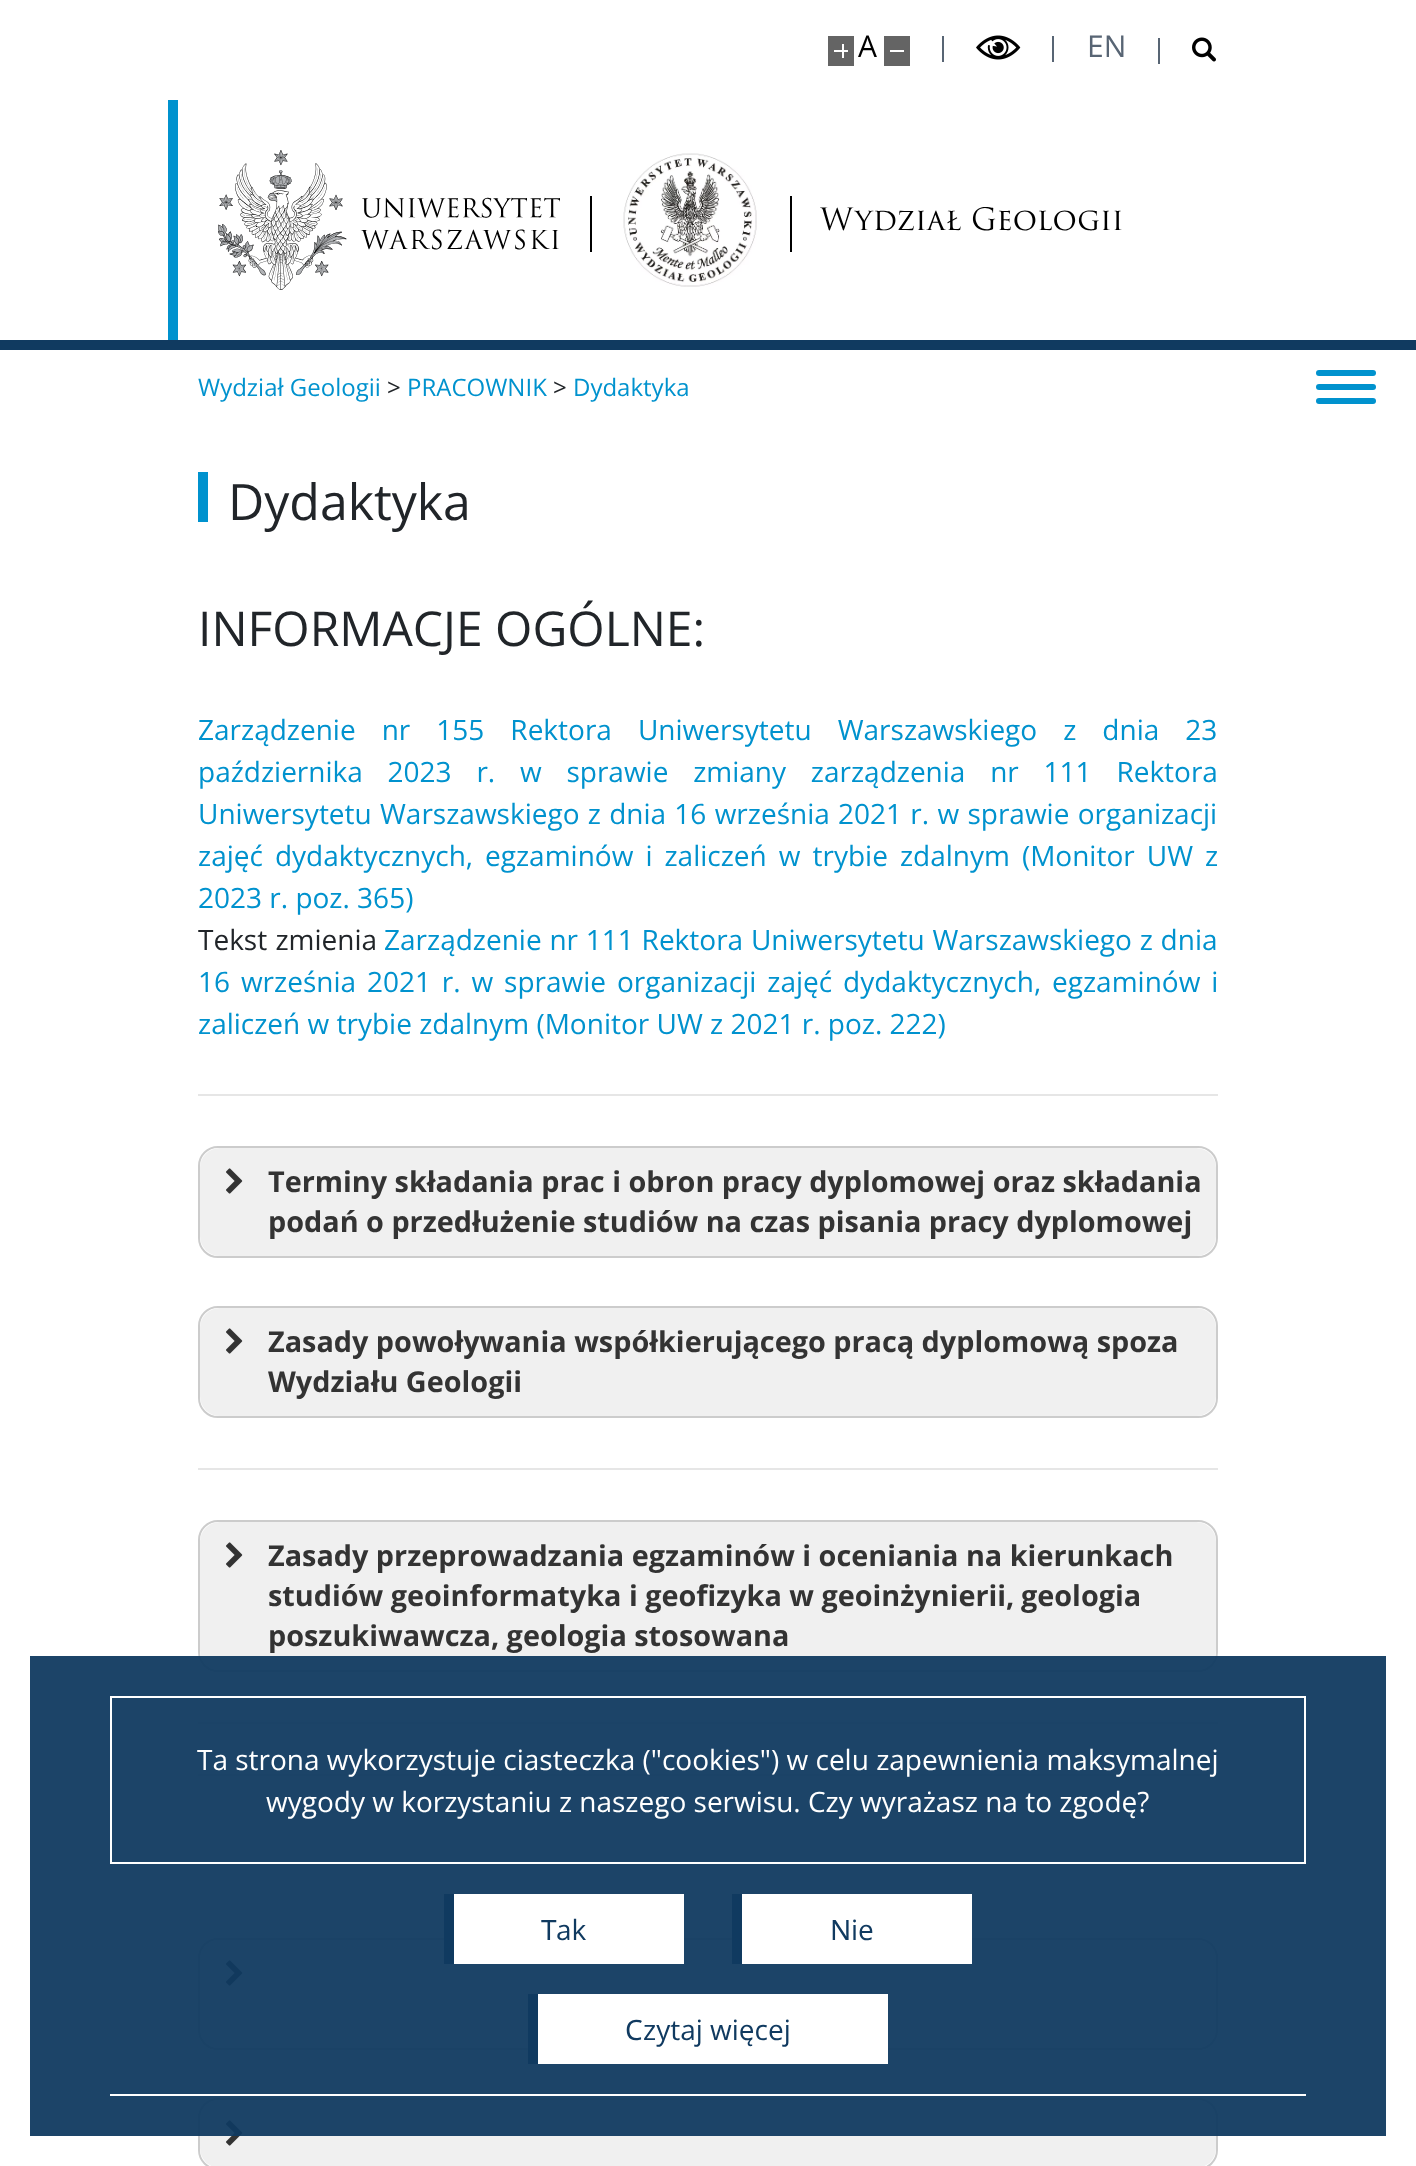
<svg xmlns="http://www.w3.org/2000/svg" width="1416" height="2166">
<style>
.a{font:30px Open Sans;fill:#000}
.b{font:30px Open Sans;fill:#586574}
.c{font:30px 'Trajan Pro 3';fill:#000}
.d{font:28px Open Sans;fill:#fff}
.e{font:28px Noto Sans;fill:#103a60}
.f{font:28px Open Sans;fill:#103a60}
.g{font:24px Open Sans;fill:#0092ce}
.h{font:24px Open Sans;fill:#212529}
.i{font:50px Open Sans;fill:#212529}
.j{font:48px Open Sans;fill:#212529}
.k{font:28px Open Sans;fill:#0092ce}
.l{font:28px Open Sans;fill:#212529}
.m{font:bold 28.8px Open Sans;fill:#333}
</style>
<rect width="100%" height="100%" fill="#fff"/>
<path fill="#103a60" d="M0 340h1416v10H0z"/>
<path fill="#646464" d="M828 36h26v30H828z"/>
<path fill="#fff" d="M834 50h14v2H834z"/>
<path fill="#fff" d="M842 44h2v14H842z"/>
<path fill="#646464" d="M884 36h26v30H884z"/>
<path fill="#fff" d="M890 50h14v2H890z"/>
<path fill="#586574" d="M942 36h2v26H942z"/>
<image href="1.png" x="976" y="35" width="45" height="25"/>
<path fill="#586574" d="M1052 36h2v26H1052z"/>
<path fill="#586574" d="M1158 38h2v26H1158z"/>
<image href="2.png" x="1192" y="37" width="24" height="25"/>
<path fill="#0092ce" d="M168 100h10v240H168z"/>
<image href="3.png" x="218" y="150" width="342" height="140"/>
<path fill="#000" d="M590 196h2v56H590z"/>
<image href="4.png" x="623" y="153" width="134" height="134"/>
<path fill="#000" d="M790 196h2v56H790z"/>
<rect fill="#0092ce" x="1316" y="384" width="60" height="6" rx="3"/>
<rect fill="#0092ce" x="1316" y="370" width="60" height="6" rx="3"/>
<rect fill="#0092ce" x="1316" y="398" width="60" height="6" rx="3"/>
<rect fill="none" stroke="#ccc" stroke-width="2" x="199" y="1521" width="1018" height="150" rx="19"/>
<rect fill="#f0f0f0" x="200" y="1522" width="1016" height="148" rx="20"/>
<path fill="#e6e6e6" d="M198 1722h1020v2H198z"/>
<path fill="#e6e6e6" d="M198 1774h1020v2H198z"/>
<rect fill="none" stroke="#ccc" stroke-width="2" x="199" y="1939" width="1018" height="110" rx="19"/>
<rect fill="#f0f0f0" x="200" y="1940" width="1016" height="108" rx="20"/>
<image href="5.png" x="226" y="1960" width="17" height="26"/>
<rect fill="none" stroke="#ccc" stroke-width="2" x="199" y="2099" width="1018" height="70" rx="19"/>
<rect fill="#f0f0f0" x="200" y="2100" width="1016" height="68" rx="20"/>
<image href="5.png" x="226" y="2120" width="17" height="26"/>
<path fill="#103a60f2" d="M30 1656h1356v480H30z"/>
<path fill="none" stroke="#fff" stroke-width="2" d="M111 1697h1194v166H111z"/>
<path fill="#fff" d="M110 2094h1196v2H110z"/>
<path fill="#fff" d="M454 1894h230v70H454z"/>
<path fill="#103a60" d="M444 1894h10v70H444z"/>
<path fill="#fff" d="M742 1894h230v70H742z"/>
<path fill="#103a60" d="M732 1894h10v70H732z"/>
<path fill="#fff" d="M538 1994h350v70H538z"/>
<path fill="#103a60" d="M528 1994h10v70H528z"/>
<path fill="#0092ce" d="M198 472h10v50H198z"/>
<path fill="#e6e6e6" d="M198 1094h1020v2H198z"/>
<rect fill="none" stroke="#ccc" stroke-width="2" x="199" y="1147" width="1018" height="110" rx="19"/>
<rect fill="#f0f0f0" x="200" y="1148" width="1016" height="108" rx="20"/>
<image href="5.png" x="226" y="1168" width="17" height="26"/>
<rect fill="none" stroke="#ccc" stroke-width="2" x="199" y="1307" width="1018" height="110" rx="19"/>
<rect fill="#f0f0f0" x="200" y="1308" width="1016" height="108" rx="20"/>
<image href="5.png" x="226" y="1328" width="17" height="26"/>
<path fill="#e6e6e6" d="M198 1468h1020v2H198z"/>
<image href="5.png" x="226" y="1542" width="17" height="26"/>
<text class="a" x="858" y="57">A</text>
<text class="b" x="1087" y="57">EN</text>
<text class="c" x="820" y="230">Wydział Geologii</text>
<text class="d" x="197" y="1770">Ta strona wykorzystuje ciasteczka ("cookies") w celu zapewnienia maksymalnej</text>
<text class="d" x="266" y="1812">wygody w korzystaniu z naszego serwisu. Czy wyrażasz na to zgodę?</text>
<text class="e" x="541" y="1940">T</text>
<text class="f" x="556" y="1940">ak</text>
<text class="e" x="830" y="1940">N</text>
<text class="f" x="851" y="1940">ie</text>
<text class="e" x="625" y="2040">C</text>
<text class="f" x="643" y="2040">zytaj więcej</text>
<text class="g" x="198" y="396">Wydział Geologii</text>
<text class="h" x="387" y="396">&gt;</text>
<text class="g" x="407" y="396">PRACOWNIK</text>
<text class="h" x="553" y="396">&gt;</text>
<text class="g" x="573" y="396">Dydaktyka</text>
<text class="i" x="228" y="520">Dydaktyka</text>
<text class="j" x="198" y="646">INFORMACJE OGÓLNE:</text>
<text class="k" x="198" y="740" word-spacing="18.75">Zarządzenie nr 155 Rektora Uniwersytetu Warszawskiego z dnia 23</text>
<text class="k" x="198" y="782" word-spacing="17.5">października 2023 r. w sprawie zmiany zarządzenia nr 111 Rektora</text>
<text class="k" x="198" y="824" word-spacing="1">Uniwersytetu Warszawskiego z dnia 16 września 2021 r. w sprawie organizacji</text>
<text class="k" x="198" y="866" word-spacing="4.75">zajęć dydaktycznych, egzaminów i zaliczeń w trybie zdalnym (Monitor UW z</text>
<text class="k" x="198" y="908">2023 r. poz. 365)</text>
<text class="l" x="198" y="950" word-spacing="1">Tekst zmienia</text>
<text class="k" x="384" y="950" word-spacing="0.5">Zarządzenie nr 111 Rektora Uniwersytetu Warszawskiego z dnia</text>
<text class="k" x="198" y="992" word-spacing="3.6">16 września 2021 r. w sprawie organizacji zajęć dydaktycznych, egzaminów i</text>
<text class="k" x="198" y="1034">zaliczeń w trybie zdalnym (Monitor UW z 2021 r. poz. 222)</text>
<text class="m" x="268" y="1192">Terminy składania prac i obron pracy dyplomowej oraz składania</text>
<text class="m" x="268" y="1232">podań o przedłużenie studiów na czas pisania pracy dyplomowej</text>
<text class="m" x="268" y="1352">Zasady powoływania współkierującego pracą dyplomową spoza</text>
<text class="m" x="268" y="1392">Wydziału Geologii</text>
<text class="m" x="268" y="1566">Zasady przeprowadzania egzaminów i oceniania na kierunkach</text>
<text class="m" x="268" y="1606">studiów geoinformatyka i geofizyka w geoinżynierii,</text>
<text class="m" x="1021" y="1606">geologia</text>
<text class="m" x="268" y="1646">poszukiwawcza, geologia stosowana</text>
</svg>
